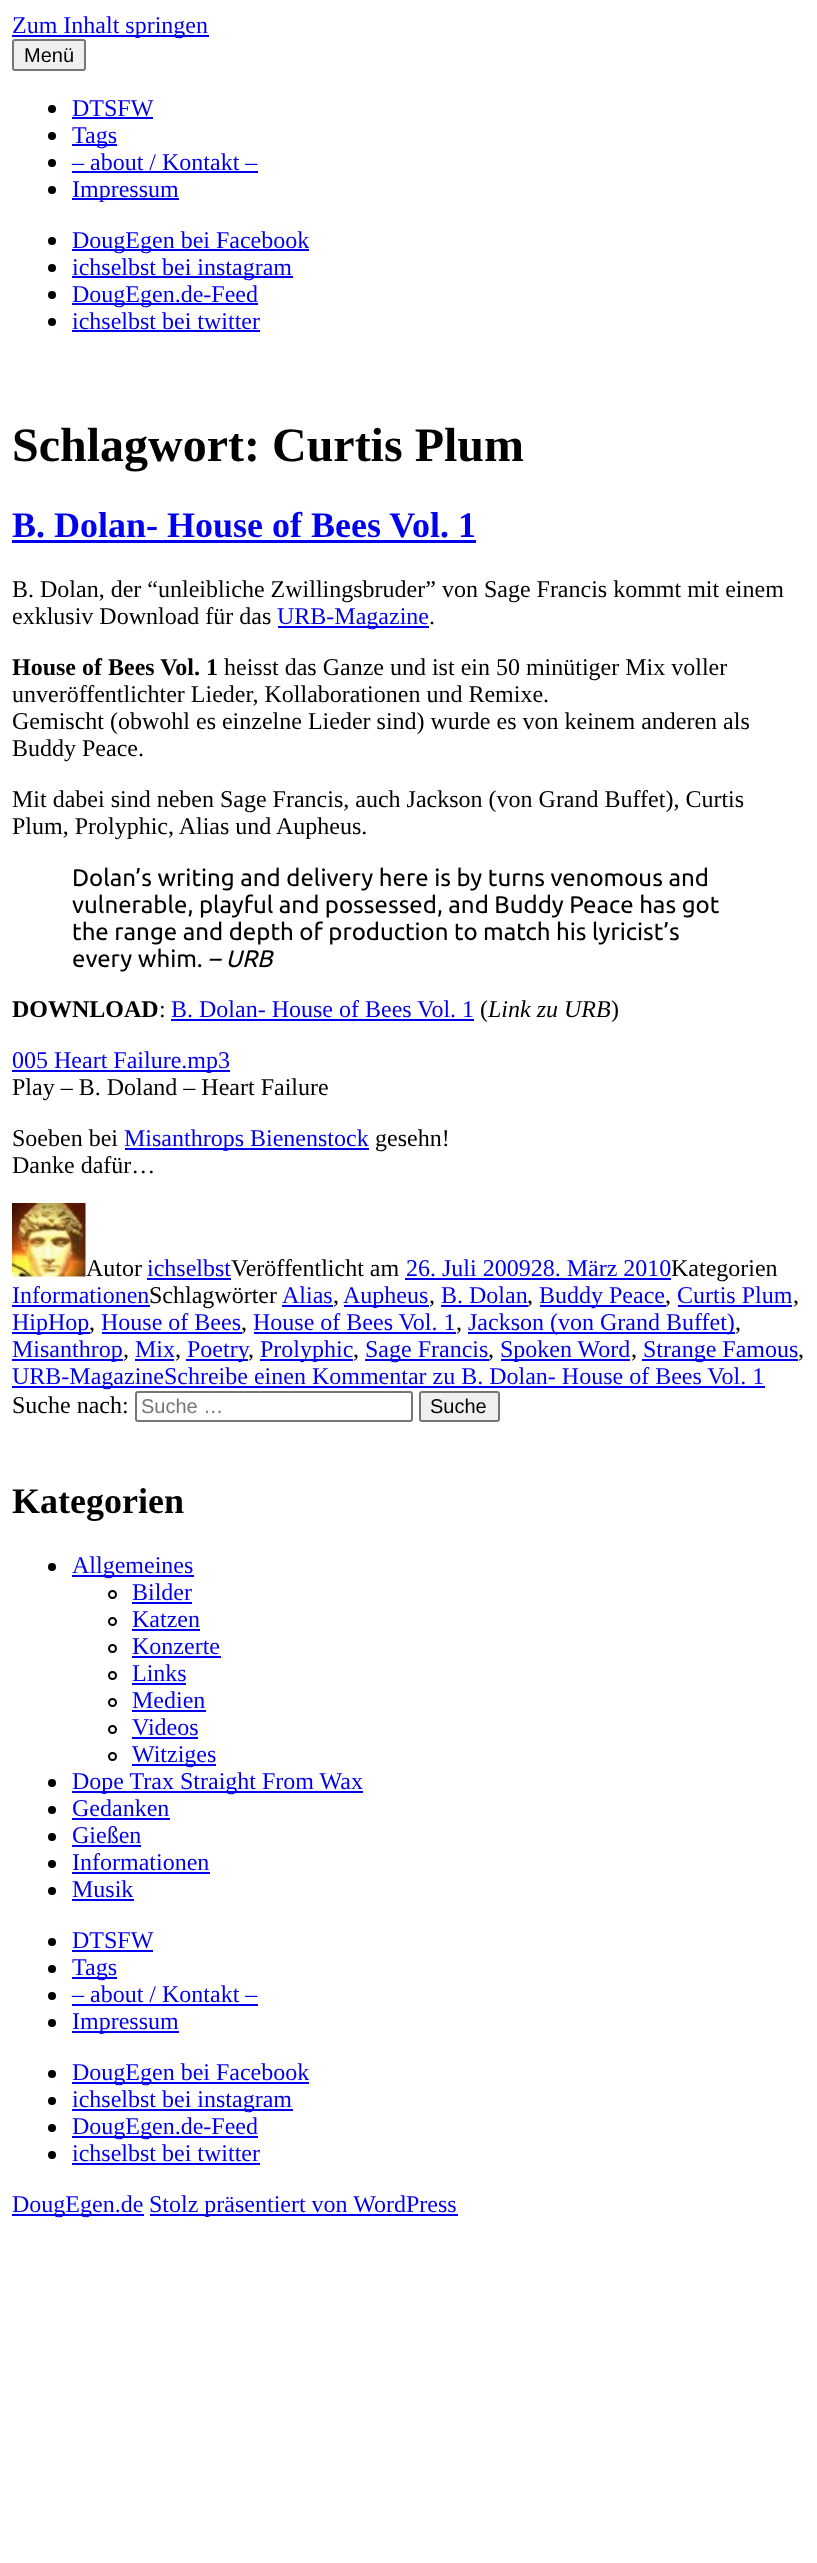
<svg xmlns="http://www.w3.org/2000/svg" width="817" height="2563">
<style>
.a{font:24px Liberation Serif;fill:#00e}
.b{font:20px Liberation Sans;fill:#000}
.c{font:bold 48px Liberation Serif;fill:#000}
.d{font:bold 36px Liberation Serif;fill:#00e}
.e{font:24px Liberation Serif;fill:#000}
.f{font:bold 24px Liberation Serif;fill:#000}
.g{font:24px Ubuntu;fill:#000}
.h{font:italic 24px Ubuntu;fill:#000}
.i{font:italic 24px Liberation Serif;fill:#000}
.j{font:20px Liberation Sans;fill:#757575}
.k{font:bold 36px Liberation Serif;fill:#000}
</style>
<rect width="100%" height="100%" fill="#fff"/>
<path fill="#00e" d="M12 35h197v2H12z"/>
<rect fill="#efefef" stroke="#767676" stroke-width="2" x="13" y="40" width="72" height="30" rx="2"/>
<circle fill="#000" cx="52" cy="109" r="4"/>
<path fill="#00e" d="M72 117h81v2H72z"/>
<circle fill="#000" cx="52" cy="136" r="4"/>
<path fill="#00e" d="M72 144h45v2H72z"/>
<circle fill="#000" cx="52" cy="163" r="4"/>
<path fill="#00e" d="M72 171h186v2H72z"/>
<circle fill="#000" cx="52" cy="190" r="4"/>
<path fill="#00e" d="M72 198h107v2H72z"/>
<circle fill="#000" cx="52" cy="241" r="4"/>
<path fill="#00e" d="M72 249h237v2H72z"/>
<circle fill="#000" cx="52" cy="268" r="4"/>
<path fill="#00e" d="M72 276h221v2H72z"/>
<circle fill="#000" cx="52" cy="295" r="4"/>
<path fill="#00e" d="M72 303h186v2H72z"/>
<circle fill="#000" cx="52" cy="322" r="4"/>
<path fill="#00e" d="M72 330h188v2H72z"/>
<path fill="#00e" d="M12 540h464v3H12z"/>
<path fill="#00e" d="M278 626h151v2H278z"/>
<path fill="#00e" d="M171 1019h303v2H171z"/>
<path fill="#00e" d="M12 1070h218v2H12z"/>
<path fill="#00e" d="M125 1148h244v2H125z"/>
<image href="1.png" x="12" y="1203" width="74" height="74"/>
<path fill="#00e" d="M147 1278h84v2H147z"/>
<path fill="#00e" d="M405 1278h266v2H405z"/>
<path fill="#00e" d="M12 1305h138v2H12z"/>
<path fill="#00e" d="M282 1305h51v2H282z"/>
<path fill="#00e" d="M344 1305h85v2H344z"/>
<path fill="#00e" d="M441 1305h87v2H441z"/>
<path fill="#00e" d="M540 1305h126v2H540z"/>
<path fill="#00e" d="M678 1305h114v2H678z"/>
<path fill="#00e" d="M12 1332h78v2H12z"/>
<path fill="#00e" d="M102 1332h140v2H102z"/>
<path fill="#00e" d="M254 1332h202v2H254z"/>
<path fill="#00e" d="M468 1332h267v2H468z"/>
<path fill="#00e" d="M12 1359h111v2H12z"/>
<path fill="#00e" d="M135 1359h39v2H135z"/>
<path fill="#00e" d="M186 1359h62v2H186z"/>
<path fill="#00e" d="M260 1359h93v2H260z"/>
<path fill="#00e" d="M365 1359h124v2H365z"/>
<path fill="#00e" d="M501 1359h129v2H501z"/>
<path fill="#00e" d="M642 1359h156v2H642z"/>
<path fill="#00e" d="M12 1386h414v2H12z"/>
<path fill="#00e" d="M426 1386h339v2H426z"/>
<rect fill="none" stroke="#767676" stroke-width="2" x="136" y="1392" width="276" height="29" rx="2"/>
<rect fill="#efefef" stroke="#767676" stroke-width="2" x="420" y="1392" width="79" height="29" rx="2"/>
<circle fill="#000" cx="52" cy="1567" r="4"/>
<path fill="#00e" d="M72 1575h122v2H72z"/>
<circle fill="none" stroke="#000" stroke-width="2" cx="112.5" cy="1594.5" r="3.5"/>
<path fill="#00e" d="M132 1602h60v2H132z"/>
<circle fill="none" stroke="#000" stroke-width="2" cx="112.5" cy="1621.5" r="3.5"/>
<path fill="#00e" d="M132 1629h68v2H132z"/>
<circle fill="none" stroke="#000" stroke-width="2" cx="112.5" cy="1648.5" r="3.5"/>
<path fill="#00e" d="M132 1656h89v2H132z"/>
<circle fill="none" stroke="#000" stroke-width="2" cx="112.5" cy="1675.5" r="3.5"/>
<path fill="#00e" d="M132 1683h54v2H132z"/>
<circle fill="none" stroke="#000" stroke-width="2" cx="112.5" cy="1702.5" r="3.5"/>
<path fill="#00e" d="M132 1710h74v2H132z"/>
<circle fill="none" stroke="#000" stroke-width="2" cx="112.5" cy="1729.5" r="3.5"/>
<path fill="#00e" d="M132 1737h66v2H132z"/>
<circle fill="none" stroke="#000" stroke-width="2" cx="112.5" cy="1756.5" r="3.5"/>
<path fill="#00e" d="M132 1764h84v2H132z"/>
<circle fill="#000" cx="52" cy="1783" r="4"/>
<path fill="#00e" d="M72 1791h291v2H72z"/>
<circle fill="#000" cx="52" cy="1810" r="4"/>
<path fill="#00e" d="M72 1818h98v2H72z"/>
<circle fill="#000" cx="52" cy="1837" r="4"/>
<path fill="#00e" d="M72 1845h69v2H72z"/>
<circle fill="#000" cx="52" cy="1864" r="4"/>
<path fill="#00e" d="M72 1872h138v2H72z"/>
<circle fill="#000" cx="52" cy="1891" r="4"/>
<path fill="#00e" d="M72 1899h62v2H72z"/>
<circle fill="#000" cx="52" cy="1942" r="4"/>
<path fill="#00e" d="M72 1950h81v2H72z"/>
<circle fill="#000" cx="52" cy="1969" r="4"/>
<path fill="#00e" d="M72 1977h45v2H72z"/>
<circle fill="#000" cx="52" cy="1996" r="4"/>
<path fill="#00e" d="M72 2004h186v2H72z"/>
<circle fill="#000" cx="52" cy="2023" r="4"/>
<path fill="#00e" d="M72 2031h107v2H72z"/>
<circle fill="#000" cx="52" cy="2074" r="4"/>
<path fill="#00e" d="M72 2082h237v2H72z"/>
<circle fill="#000" cx="52" cy="2101" r="4"/>
<path fill="#00e" d="M72 2109h221v2H72z"/>
<circle fill="#000" cx="52" cy="2128" r="4"/>
<path fill="#00e" d="M72 2136h186v2H72z"/>
<circle fill="#000" cx="52" cy="2155" r="4"/>
<path fill="#00e" d="M72 2163h188v2H72z"/>
<path fill="#00e" d="M12 2214h132v2H12z"/>
<path fill="#00e" d="M150 2214h308v2H150z"/>
<text class="a" x="12" y="33">Zum Inhalt springen</text>
<text class="b" x="24" y="62">Menü</text>
<text class="a" x="72" y="116">DTSFW</text>
<text class="a" x="72" y="143">Tags</text>
<text class="a" x="72" y="170">– about / Kontakt –</text>
<text class="a" x="72" y="197">Impressum</text>
<text class="a" x="72" y="248">DougEgen bei Facebook</text>
<text class="a" x="72" y="275">ichselbst bei instagram</text>
<text class="a" x="72" y="302">DougEgen.de-Feed</text>
<text class="a" x="72" y="329">ichselbst bei twitter</text>
<text class="c" x="12" y="461">Schlagwort: Curtis Plum</text>
<text class="d" x="12" y="537">B. Dolan- House of Bees Vol. 1</text>
<text class="e" x="12" y="597">B. Dolan, der “unleibliche Zwillingsbruder” von Sage Francis kommt mit einem</text>
<text class="e" x="12" y="624">exklusiv Download für das</text>
<text class="a" x="277" y="624">URB-Magazine</text>
<text class="e" x="429" y="624">.</text>
<text class="f" x="12" y="675">House of Bees Vol. 1</text>
<text class="e" x="224" y="675">heisst das Ganze und ist ein 50 minütiger Mix voller</text>
<text class="e" x="12" y="702">unveröffentlichter Lieder, Kollaborationen und Remixe.</text>
<text class="e" x="12" y="729">Gemischt (obwohl es einzelne Lieder sind) wurde es von keinem anderen als</text>
<text class="e" x="12" y="756">Buddy Peace.</text>
<text class="e" x="12" y="807">Mit dabei sind neben Sage Francis, auch Jackson (von Grand Buffet), Curtis</text>
<text class="e" x="12" y="834">Plum, Prolyphic, Alias und Aupheus.</text>
<text class="g" x="72" y="886">Dolan’s writing and delivery here is by turns venomous and</text>
<text class="g" x="72" y="913">vulnerable, playful and possessed, and Buddy Peace has got</text>
<text class="g" x="72" y="940">the range and depth of production to match his lyricist’s</text>
<text class="g" x="72" y="967">every whim.</text>
<text class="h" x="208" y="967">– URB</text>
<text class="f" x="12" y="1017">DOWNLOAD</text>
<text class="e" x="159" y="1017">:</text>
<text class="a" x="171" y="1017">B. Dolan- House of Bees Vol. 1</text>
<text class="e" x="480" y="1017">(</text>
<text class="i" x="488" y="1017">Link zu URB</text>
<text class="e" x="611" y="1017">)</text>
<text class="a" x="12" y="1068">005 Heart Failure.mp3</text>
<text class="e" x="12" y="1095">Play – B. Doland – Heart Failure</text>
<text class="e" x="12" y="1146">Soeben bei</text>
<text class="a" x="124" y="1146">Misanthrops Bienenstock</text>
<text class="e" x="375" y="1146">gesehn!</text>
<text class="e" x="12" y="1173">Danke dafür…</text>
<text class="e" x="86" y="1276">Autor</text>
<text class="a" x="147" y="1276">ichselbst</text>
<text class="e" x="231" y="1276">Veröffentlicht am</text>
<text class="a" x="406" y="1276">26. Juli 200928. März 2010</text>
<text class="e" x="671" y="1276">Kategorien</text>
<text class="a" x="12" y="1303">Informationen</text>
<text class="e" x="149" y="1303">Schlagwörter</text>
<text class="a" x="282" y="1303">Alias</text>
<text class="e" x="333" y="1303">,</text>
<text class="a" x="343" y="1303">Aupheus</text>
<text class="e" x="429" y="1303">,</text>
<text class="a" x="441" y="1303">B. Dolan</text>
<text class="e" x="527" y="1303">,</text>
<text class="a" x="539" y="1303">Buddy Peace</text>
<text class="e" x="665" y="1303">,</text>
<text class="a" x="677" y="1303">Curtis Plum</text>
<text class="e" x="793" y="1303">,</text>
<text class="a" x="12" y="1330">HipHop</text>
<text class="e" x="89" y="1330">,</text>
<text class="a" x="101" y="1330">House of Bees</text>
<text class="e" x="241" y="1330">,</text>
<text class="a" x="253" y="1330">House of Bees Vol. 1</text>
<text class="e" x="456" y="1330">,</text>
<text class="a" x="468" y="1330">Jackson (von Grand Buffet)</text>
<text class="e" x="735" y="1330">,</text>
<text class="a" x="12" y="1357">Misanthrop</text>
<text class="e" x="123" y="1357">,</text>
<text class="a" x="135" y="1357">Mix</text>
<text class="e" x="175" y="1357">,</text>
<text class="a" x="187" y="1357">Poetry</text>
<text class="e" x="248" y="1357">,</text>
<text class="a" x="260" y="1357">Prolyphic</text>
<text class="e" x="353" y="1357">,</text>
<text class="a" x="365" y="1357">Sage Francis</text>
<text class="e" x="488" y="1357">,</text>
<text class="a" x="500" y="1357">Spoken Word</text>
<text class="e" x="631" y="1357">,</text>
<text class="a" x="643" y="1357">Strange Famous</text>
<text class="e" x="798" y="1357">,</text>
<text class="a" x="12" y="1384">URB-MagazineSchreibe einen Kommentar zu B. Dolan- House of Bees Vol. 1</text>
<text class="e" x="12" y="1413">Suche nach:</text>
<text class="j" x="141" y="1413">Suche …</text>
<text class="b" x="430" y="1413">Suche</text>
<text class="k" x="12" y="1513">Kategorien</text>
<text class="a" x="72" y="1573">Allgemeines</text>
<text class="a" x="132" y="1600">Bilder</text>
<text class="a" x="132" y="1627">Katzen</text>
<text class="a" x="132" y="1654">Konzerte</text>
<text class="a" x="132" y="1681">Links</text>
<text class="a" x="132" y="1708">Medien</text>
<text class="a" x="132" y="1735">Videos</text>
<text class="a" x="132" y="1762">Witziges</text>
<text class="a" x="72" y="1789">Dope Trax Straight From Wax</text>
<text class="a" x="72" y="1816">Gedanken</text>
<text class="a" x="72" y="1843">Gießen</text>
<text class="a" x="72" y="1870">Informationen</text>
<text class="a" x="72" y="1897">Musik</text>
<text class="a" x="72" y="1948">DTSFW</text>
<text class="a" x="72" y="1975">Tags</text>
<text class="a" x="72" y="2002">– about / Kontakt –</text>
<text class="a" x="72" y="2029">Impressum</text>
<text class="a" x="72" y="2080">DougEgen bei Facebook</text>
<text class="a" x="72" y="2107">ichselbst bei instagram</text>
<text class="a" x="72" y="2134">DougEgen.de-Feed</text>
<text class="a" x="72" y="2161">ichselbst bei twitter</text>
<text class="a" x="12" y="2212">DougEgen.de</text>
<text class="a" x="149" y="2212">Stolz präsentiert von WordPress</text>
</svg>
